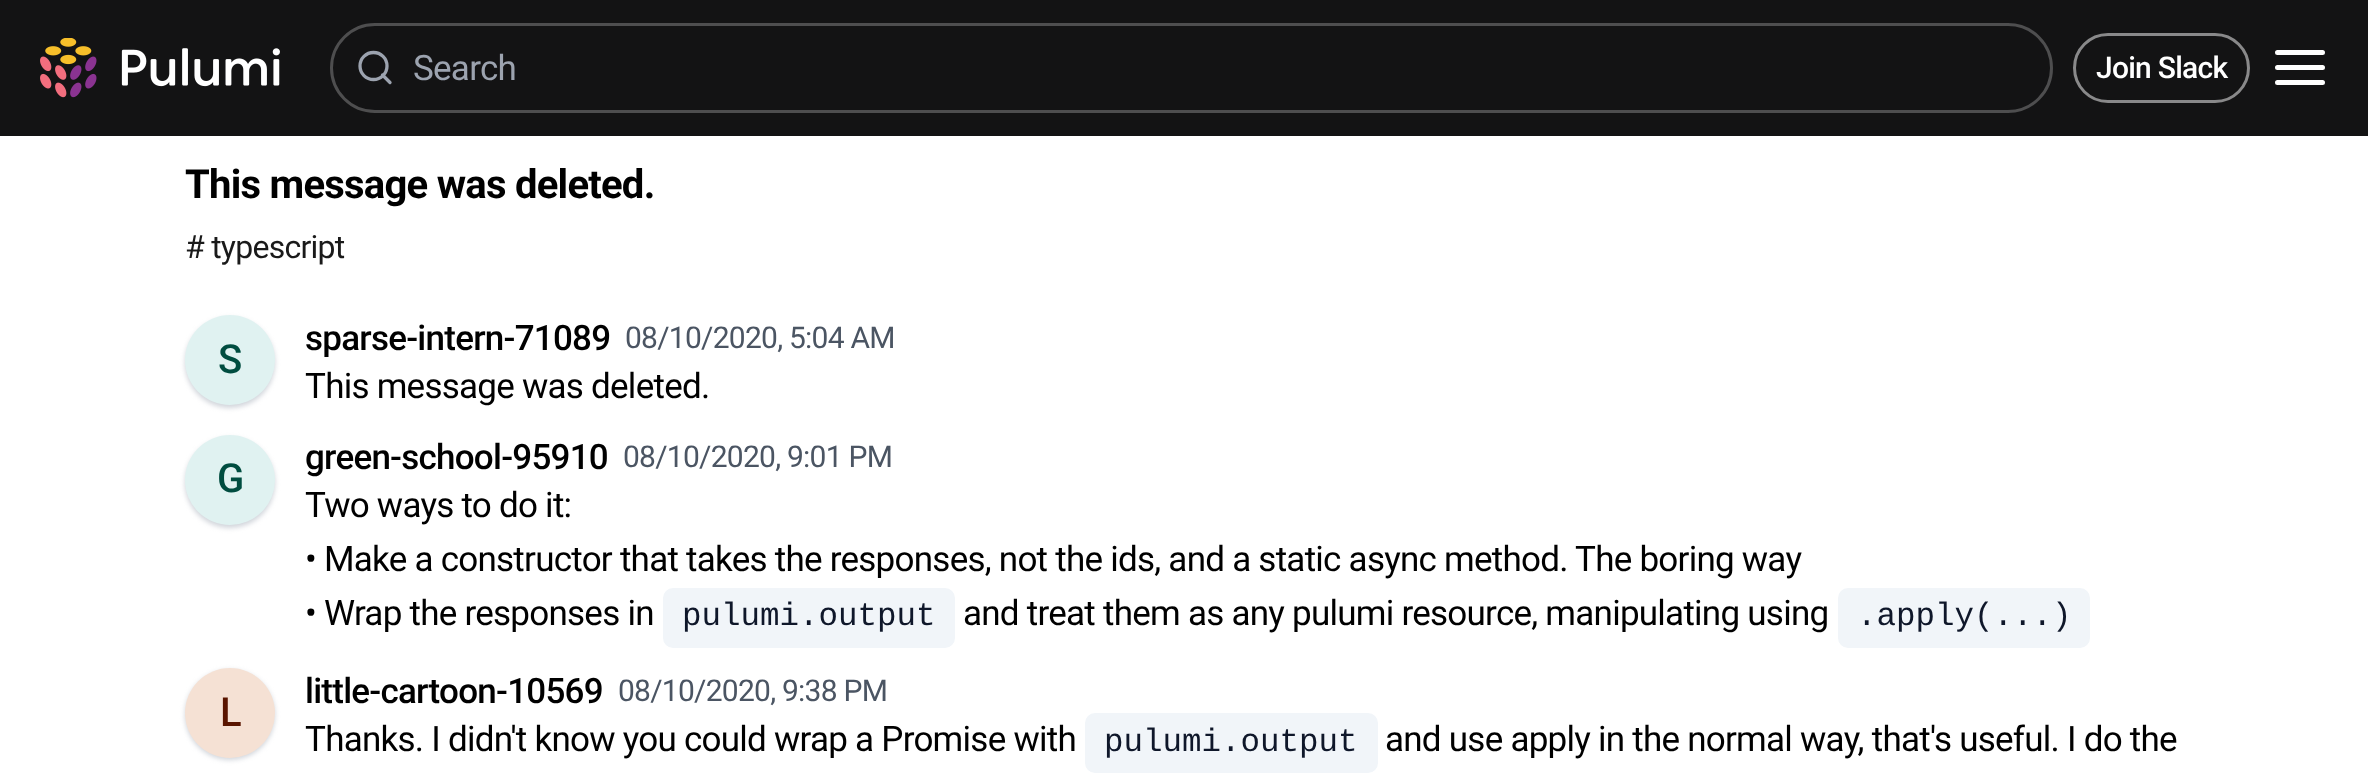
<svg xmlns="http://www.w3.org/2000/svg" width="2368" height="781">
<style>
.a{font:35px Roboto;letter-spacing:-0.75px;fill:#9ca3af}
.b{font:500 30px Roboto;letter-spacing:-0.75px;fill:#fff}
.c{font:bold 40px Roboto;letter-spacing:-0.75px;fill:#000}
.d{font:32px Roboto;letter-spacing:-0.75px;fill:#1a1a1a}
.e{font:500 40px Roboto;letter-spacing:-0.75px;fill:#004d40}
.f{font:500 35px Roboto;letter-spacing:-0.75px;fill:#000}
.g{font:30px Roboto;letter-spacing:-0.75px;fill:#4b5563}
.h{font:35px Roboto;letter-spacing:-0.75px;fill:#000}
.i{font:32.5px Liberation Mono;fill:#0f172a}
.j{font:500 40px Roboto;letter-spacing:-0.75px;fill:#5a1500}
</style>
<rect width="100%" height="100%" fill="#fff"/>
<path fill="#131314" d="M0 0h2368v136H0z"/>
<image href="1.png" x="40" y="38" width="240" height="60"/>
<rect fill="none" stroke="#4e4e4f" stroke-width="3" x="331.5" y="24.5" width="1720" height="87" rx="43.5"/>
<circle fill="none" stroke="#9ca3af" stroke-width="3.3" cx="373.5" cy="66" r="13.5"/>
<path fill="none" stroke="#9ca3af" stroke-width="3.3" stroke-linecap="round" stroke-linejoin="round" d="M390 82.5l-7.5-7.5"/>
<rect fill="none" stroke="#89898a" stroke-width="3" x="2074.5" y="34.5" width="174" height="67" rx="33.5"/>
<path fill="none" stroke="#fff" stroke-width="5" stroke-linecap="round" stroke-linejoin="round" d="M2277.5 67.5h45m-45-15h45m-45 30h45"/>
<rect fill="#d1d5db" filter="blur(2.5px)" x="185" y="318" width="90" height="90" rx="45"/>
<circle fill="#e0f2f1" cx="230" cy="360" r="45"/>
<rect fill="#d1d5db" filter="blur(2.5px)" x="185" y="438" width="90" height="90" rx="45"/>
<circle fill="#e0f2f1" cx="230" cy="480" r="45"/>
<rect fill="#f1f5f9" x="663" y="588" width="292" height="60" rx="10"/>
<rect fill="#f1f5f9" x="1838" y="588" width="252" height="60" rx="10"/>
<rect fill="#d1d5db" filter="blur(2.5px)" x="185" y="670" width="90" height="90" rx="45"/>
<circle fill="#f5e1d4" cx="230" cy="713" r="45"/>
<rect fill="#f1f5f9" x="1085" y="713" width="293" height="60" rx="10"/>
<text class="a" x="413" y="80">Search</text>
<text class="b" x="2096" y="78">Join Slack</text>
<text class="c" x="185" y="198">This message was deleted.</text>
<text class="d" x="185" y="258"># typescript</text>
<text class="e" x="218" y="373">S</text>
<text class="f" x="305" y="350">sparse-intern-71089</text>
<text class="g" x="625" y="348">08/10/2020, 5:04 AM</text>
<text class="h" x="305" y="398">This message was deleted.</text>
<text class="e" x="217" y="492">G</text>
<text class="f" x="305" y="469">green-school-95910</text>
<text class="g" x="623" y="467">08/10/2020, 9:01 PM</text>
<text class="h" x="305" y="517">Two ways to do it:</text>
<text class="h" x="305" y="571">• Make a constructor that takes the responses, not the ids, and a static async method. The boring way</text>
<text class="h" x="305" y="625">• Wrap the responses in</text>
<text class="i" x="682" y="625">pulumi.output</text>
<text class="h" x="963" y="625">and treat them as any pulumi resource, manipulating using</text>
<text class="i" x="1857" y="625">.apply(...)</text>
<text class="j" x="220" y="726">L</text>
<text class="f" x="305" y="703">little-cartoon-10569</text>
<text class="g" x="618" y="701">08/10/2020, 9:38 PM</text>
<text class="h" x="305" y="751">Thanks. I didn't know you could wrap a Promise with</text>
<text class="i" x="1104" y="751">pulumi.output</text>
<text class="h" x="1385" y="751">and use apply in the normal way, that's useful. I do the</text>
</svg>
